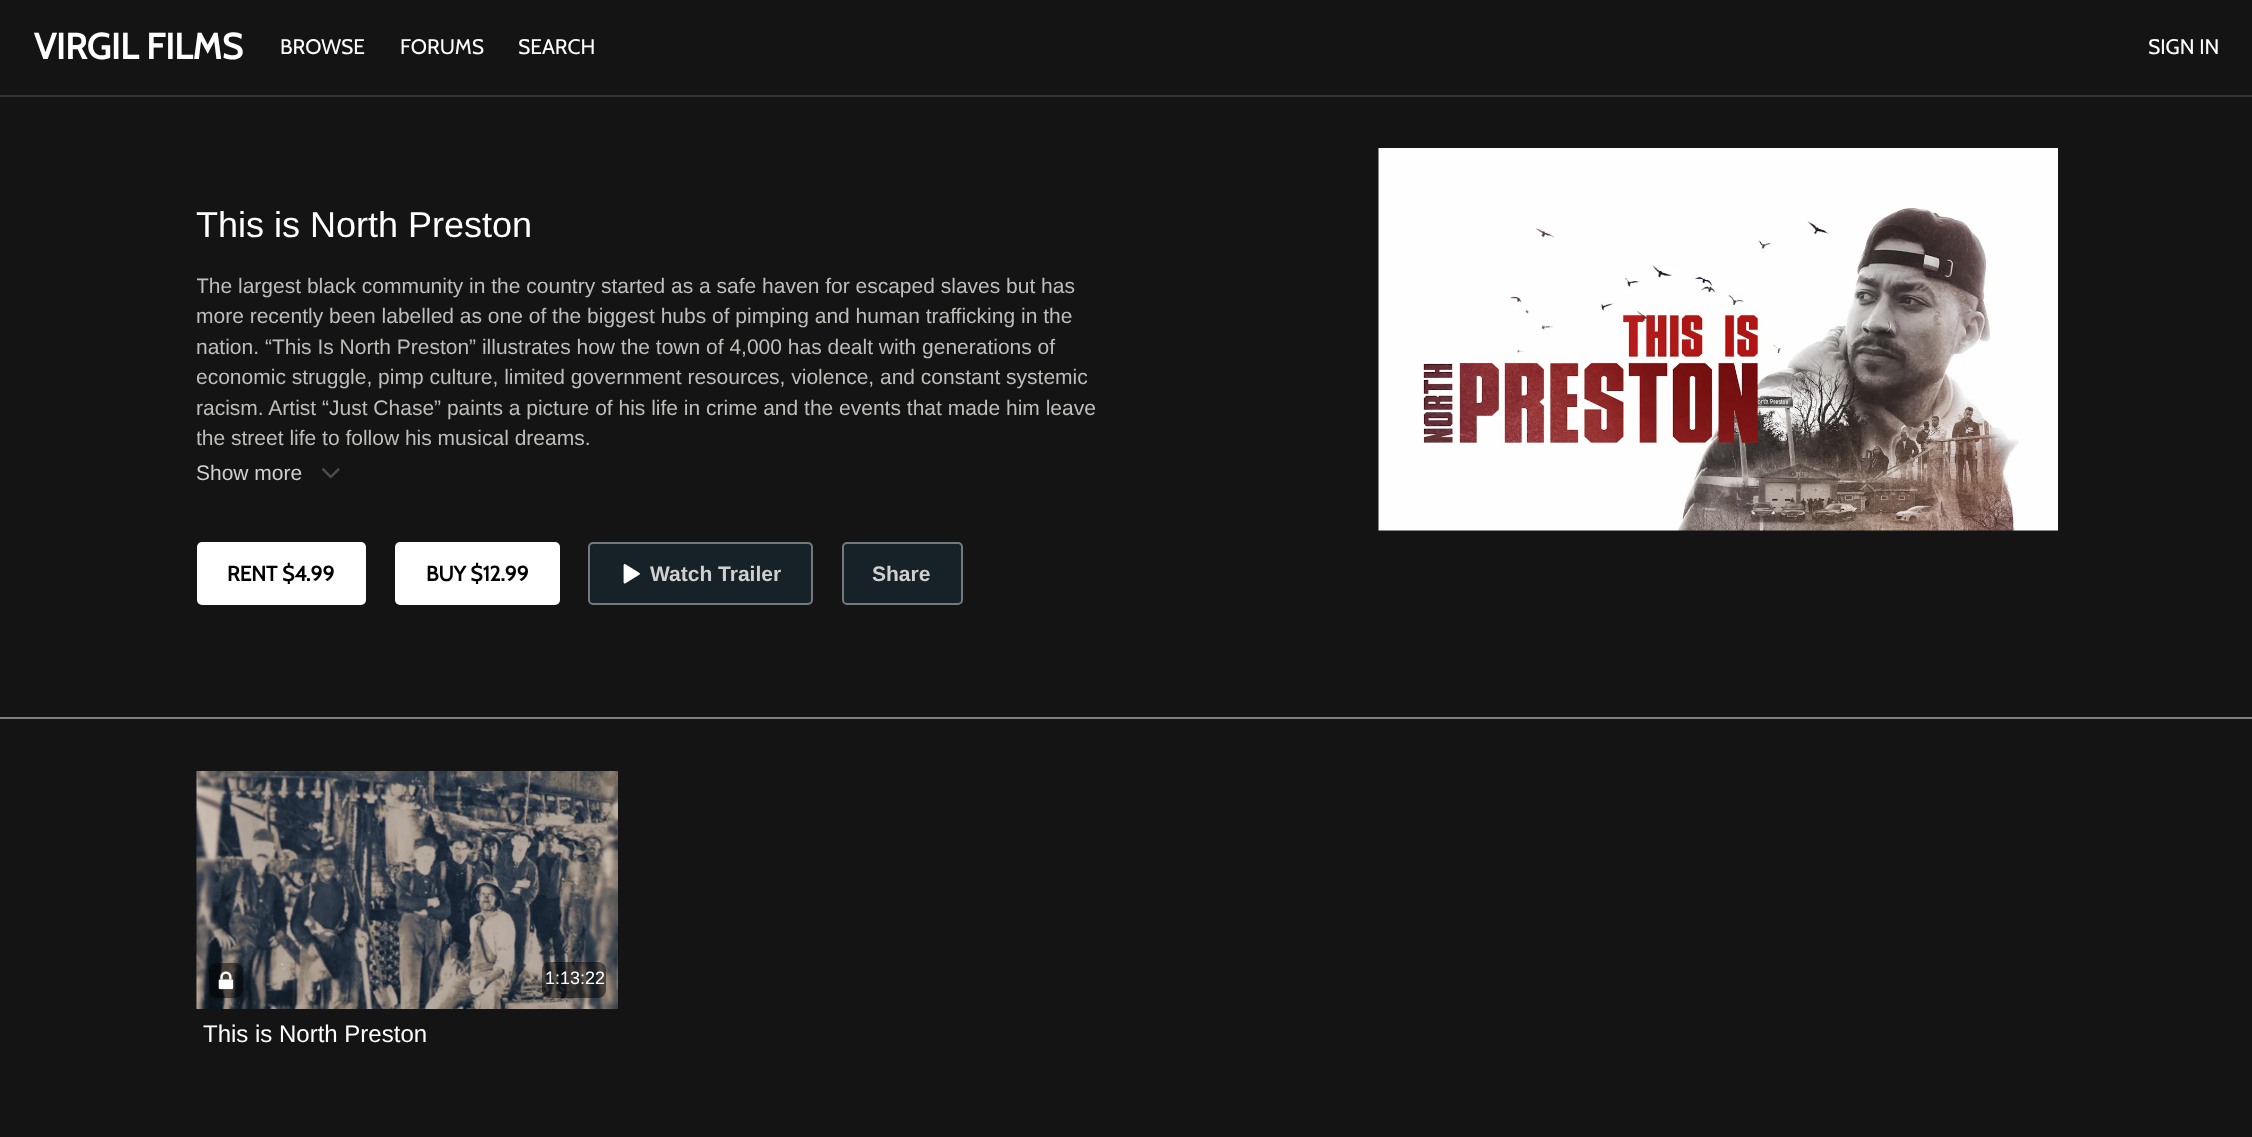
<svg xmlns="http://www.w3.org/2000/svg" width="2252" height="1137">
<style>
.a{font:bold 36px Cabin;fill:#fff}
.b{font:21px Cabin;fill:#fff}
.c{font:36px Liberation Sans;fill:#fff}
.d{font:21px Liberation Sans;fill:#bebebb}
.e{font:21px Liberation Sans;fill:#d0d0d0}
.f{font:bold 21px Cabin;fill:#000}
.g{font:bold 21px Liberation Sans;fill:#d0d0d0}
.h{font:18px Liberation Sans;fill:#fff}
.i{font:24px Liberation Sans;fill:#fff}
</style>
<defs>
<clipPath id="clip1"><path d="M197 270h919v180H197z"/></clipPath>
</defs>
<rect width="100%" height="100%" fill="#141414"/>
<path fill="#323232" d="M0 95h2252v2H0z"/>
<path fill="#7c7e7f" d="M0 717h2252v2H0z"/>
<image href="1.png" x="322" y="468" width="18" height="11"/>
<rect fill="#fff" x="197" y="542" width="169" height="63" rx="5"/>
<rect fill="#fff" x="395" y="542" width="165" height="63" rx="5"/>
<rect fill="#172128" x="588" y="542" width="225" height="63" rx="5"/>
<rect fill="none" stroke="#ffffff66" stroke-width="2" x="589" y="543" width="223" height="61" rx="4"/>
<image href="2.png" x="623" y="564" width="17" height="20"/>
<rect fill="#172128" x="842" y="542" width="121" height="63" rx="5"/>
<rect fill="none" stroke="#ffffff66" stroke-width="2" x="843" y="543" width="119" height="61" rx="4"/>
<image href="3.png" x="1378" y="148" width="680" height="383"/>
<image href="4.png" x="196" y="771" width="422" height="238"/>
<rect fill="#00000080" x="209" y="963" width="34" height="35" rx="8"/>
<image href="5.png" x="218" y="971" width="16" height="19"/>
<rect fill="#00000080" x="542" y="962" width="64" height="36" rx="8"/>
<text class="a" x="34" y="59">VIRGIL FILMS</text>
<text class="b" x="280" y="54">BROWSE</text>
<text class="b" x="400" y="54">FORUMS</text>
<text class="b" x="518" y="54">SEARCH</text>
<text class="b" x="2148" y="54">SIGN IN</text>
<text class="c" x="196" y="237">This is North Preston</text>
<g clip-path="url(#clip1)">
<text class="d" x="196" y="293">The largest black community in the country started as a safe haven for escaped slaves but has</text>
</g>
<text class="d" x="196" y="323">more recently been labelled as one of the biggest hubs of pimping and human trafficking in the</text>
<text class="d" x="196" y="354">nation. “This Is North Preston” illustrates how the town of 4,000 has dealt with generations of</text>
<g clip-path="url(#clip1)">
<text class="d" x="196" y="384">economic struggle, pimp culture, limited government resources, violence, and constant systemic</text>
</g>
<text class="d" x="196" y="415">racism. Artist “Just Chase” paints a picture of his life in crime and the events that made him leave</text>
<g clip-path="url(#clip1)">
<text class="d" x="196" y="445">the street life to follow his musical dreams.</text>
</g>
<text class="e" x="196" y="480">Show more</text>
<text class="f" x="227" y="581">RENT $4.99</text>
<text class="f" x="426" y="581">BUY $12.99</text>
<text class="g" x="650" y="581">Watch Trailer</text>
<text class="g" x="872" y="581">Share</text>
<text class="h" x="545" y="984">1:13:22</text>
<text class="i" x="203" y="1042">This is North Preston</text>
</svg>
